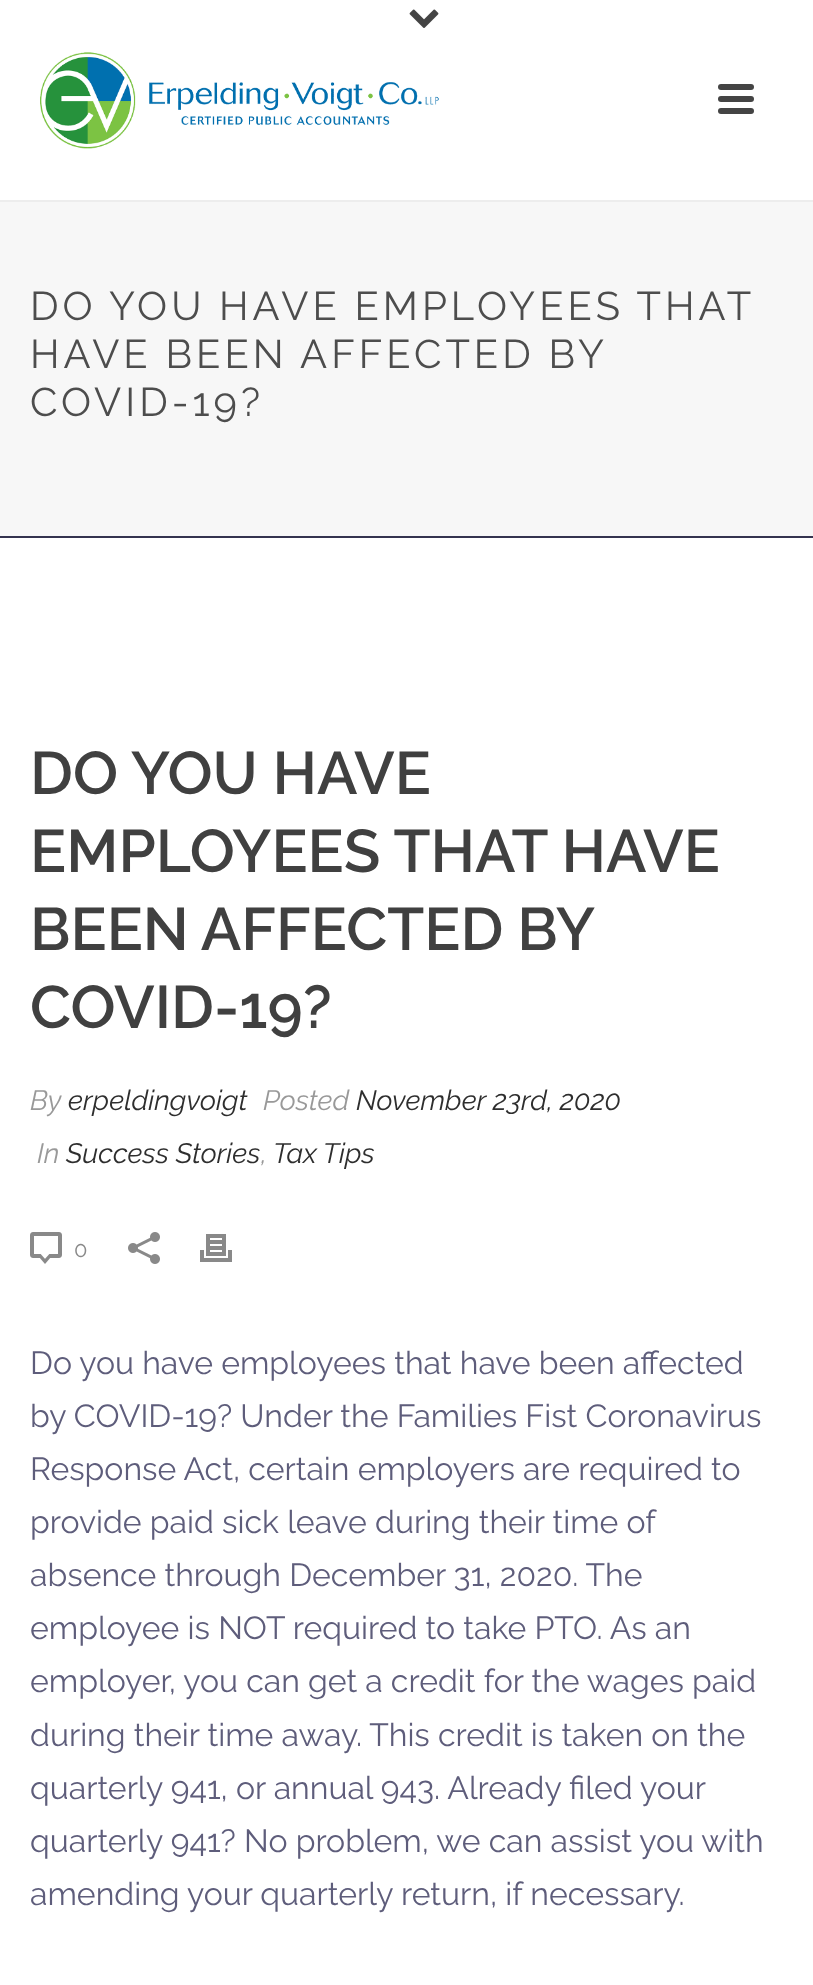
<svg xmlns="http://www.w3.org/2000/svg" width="813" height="1985">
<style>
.a{font:40px Raleway;letter-spacing:4px;fill:#4d4d4d}
.b{font:600 60px Raleway;fill:#404040}
.c{font:italic 28px Raleway;fill:#999}
.d{font:italic 28px Raleway;fill:#2e2e2e}
.e{font:22px Raleway;fill:#898989}
.f{font:32px Raleway;fill:#5e5d7b}
</style>
<rect width="100%" height="100%" fill="#fff"/>
<path fill="#f7f7f7" d="M0 202h813v334H0z"/>
<path fill="#34334f" d="M0 536h813v2H0z"/>
<path fill="#ededed" d="M0 200h813v2H0z"/>
<image href="1.png" x="409" y="9" width="30" height="19"/>
<image href="2.png" x="40" y="52" width="399" height="97"/>
<rect fill="#444" x="718" y="84" width="36" height="6" rx="3"/>
<rect fill="#444" x="718" y="96" width="36" height="6" rx="3"/>
<rect fill="#444" x="718" y="108" width="36" height="6" rx="3"/>
<image href="3.png" x="30" y="1232" width="32" height="32"/>
<image href="4.png" x="128" y="1232" width="32" height="32"/>
<image href="5.png" x="200" y="1234" width="32" height="28"/>
<text class="a" x="30" y="320" word-spacing="-0.5">DO YOU HAVE EMPLOYEES THAT</text>
<text class="a" x="30" y="368" word-spacing="-0.5">HAVE BEEN AFFECTED BY</text>
<text class="a" x="30" y="416">COVID-19?</text>
<text class="b" x="30" y="794">DO YOU HAVE</text>
<text class="b" x="30" y="872">EMPLOYEES THAT HAVE</text>
<text class="b" x="30" y="950" word-spacing="-1">BEEN AFFECTED BY</text>
<text class="b" x="30" y="1028">COVID-19?</text>
<text class="c" x="30" y="1110">By</text>
<text class="d" x="68" y="1110">erpeldingvoigt</text>
<text class="c" x="263" y="1110">Posted</text>
<text class="d" x="356" y="1110">November 23rd, 2020</text>
<text class="c" x="37" y="1163">In</text>
<text class="d" x="66" y="1163">Success Stories</text>
<text class="c" x="261" y="1163">,</text>
<text class="d" x="273" y="1163">Tax Tips</text>
<text class="e" x="74" y="1257">0</text>
<text class="f" x="30" y="1374">Do you have employees that have been affected</text>
<text class="f" x="30" y="1427">by COVID-19? Under the Families Fist Coronavirus</text>
<text class="f" x="30" y="1480">Response Act, certain employers are required to</text>
<text class="f" x="30" y="1533">provide paid sick leave during their time of</text>
<text class="f" x="30" y="1586">absence through December 31, 2020. The</text>
<text class="f" x="30" y="1639">employee is NOT required to take PTO. As an</text>
<text class="f" x="30" y="1692">employer, you can get a credit for the wages paid</text>
<text class="f" x="30" y="1746">during their time away. This credit is taken on the</text>
<text class="f" x="30" y="1799">quarterly 941, or annual 943. Already filed your</text>
<text class="f" x="30" y="1852">quarterly 941? No problem, we can assist you with</text>
<text class="f" x="30" y="1905">amending your quarterly return, if necessary.</text>
</svg>
